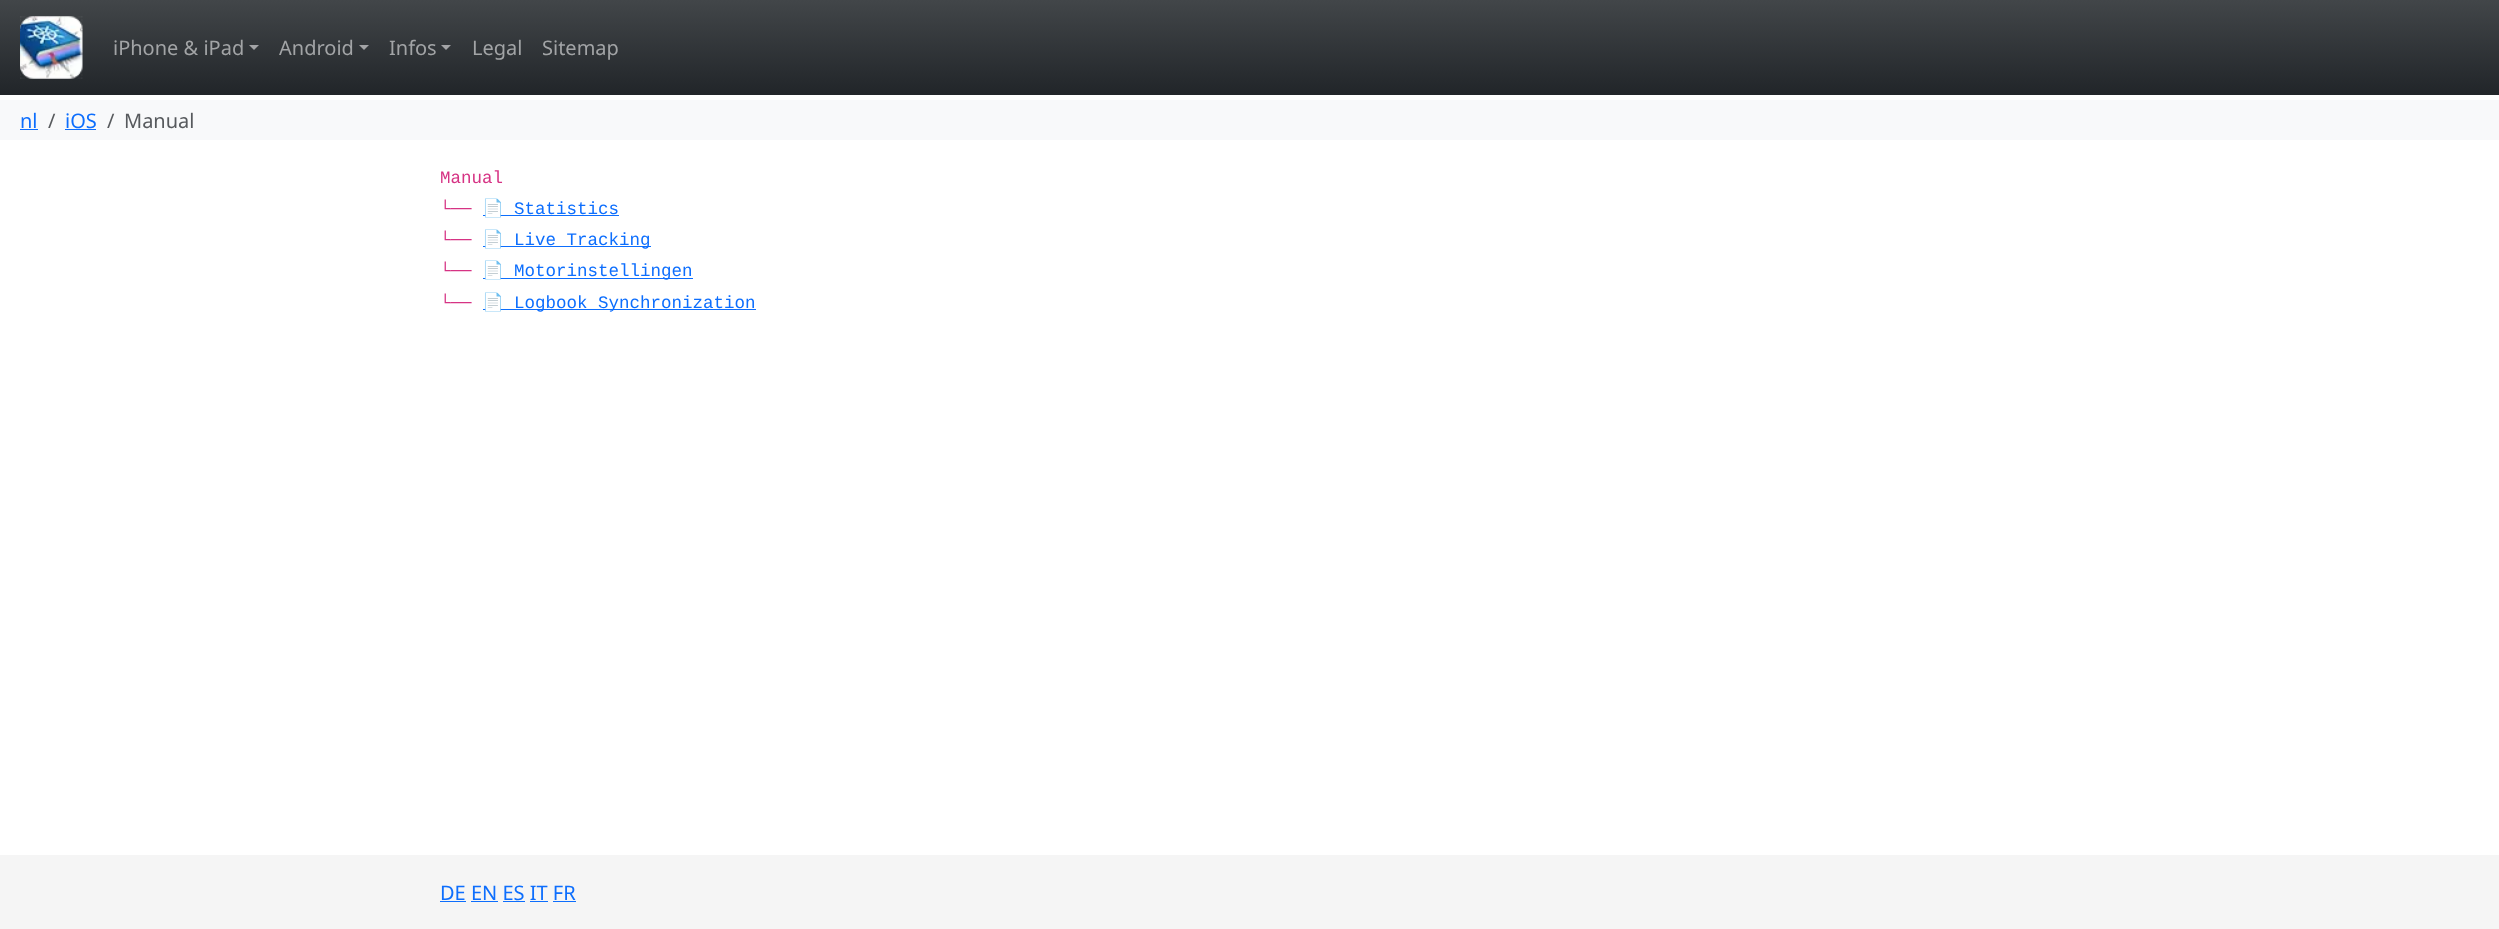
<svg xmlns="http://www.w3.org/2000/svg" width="2499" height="929">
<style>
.a{font:20px Noto Sans;fill:#a2a4a6}
.b{font:20px Noto Sans;fill:#0d6efd}
.c{font:20px Noto Sans;fill:#575a5d}
.d{font:17.5px Liberation Mono;fill:#d63384}
.e{font:17.5px Noto Color Emoji;fill:#0d6efd}
.f{font:17.5px Liberation Mono;fill:#0d6efd}
</style>
<defs>
<linearGradient id="g1" gradientUnits="userSpaceOnUse" x1="1250" y1="0" x2="1250" y2="95"><stop offset="0" stop-color="#424649"/><stop offset="1" stop-color="#212529"/></linearGradient>
</defs>
<rect width="100%" height="100%" fill="#fff"/>
<path fill="url(#g1)" d="M0 0h2499v95H0z"/>
<image href="1.png" x="20" y="16" width="63" height="63"/>
<path fill="#a3a4a6" d="M249 45h10l-5 5z"/>
<path fill="#a3a4a6" d="M359 45h10l-5 5z"/>
<path fill="#a3a4a6" d="M441 45h10l-5 5z"/>
<path fill="#f8f9fa" d="M0 100h2499v40H0z"/>
<path fill="#0d6efd" d="M20 129h18v1H20z"/>
<path fill="#0d6efd" d="M65 129h31v1H65z"/>
<path fill="#0d6efd" d="M483 215h136v1H483z"/>
<path fill="#0d6efd" d="M483 246h168v1H483z"/>
<path fill="#0d6efd" d="M483 278h210v1H483z"/>
<path fill="#0d6efd" d="M483 309h273v1H483z"/>
<path fill="#f5f5f5" d="M0 855h2499v74H0z"/>
<path fill="#0d6efd" d="M440 901h26v1H440z"/>
<path fill="#0d6efd" d="M471 901h27v1H471z"/>
<path fill="#0d6efd" d="M503 901h22v1H503z"/>
<path fill="#0d6efd" d="M530 901h18v1H530z"/>
<path fill="#0d6efd" d="M553 901h23v1H553z"/>
<text class="a" x="113" y="55">iPhone &amp; iPad</text>
<text class="a" x="279" y="55">Android</text>
<text class="a" x="389" y="55">Infos</text>
<text class="a" x="472" y="55">Legal</text>
<text class="a" x="542" y="55">Sitemap</text>
<text class="b" x="20" y="128">nl</text>
<text class="c" x="48" y="128">/</text>
<text class="b" x="65" y="128">iOS</text>
<text class="c" x="107" y="128">/</text>
<text class="c" x="124" y="128">Manual</text>
<text class="d" x="440" y="183">Manual</text>
<text class="d" x="440" y="214">└──</text>
<text class="e" x="482" y="214">📄</text>
<text class="f" x="514" y="214">Statistics</text>
<text class="d" x="440" y="245">└──</text>
<text class="e" x="482" y="245">📄</text>
<text class="f" x="514" y="245">Live Tracking</text>
<text class="d" x="440" y="276">└──</text>
<text class="e" x="482" y="276">📄</text>
<text class="f" x="514" y="276">Motorinstellingen</text>
<text class="d" x="440" y="308">└──</text>
<text class="e" x="482" y="308">📄</text>
<text class="f" x="514" y="308">Logbook Synchronization</text>
<text class="b" x="440" y="900">DE EN ES IT FR</text>
</svg>
